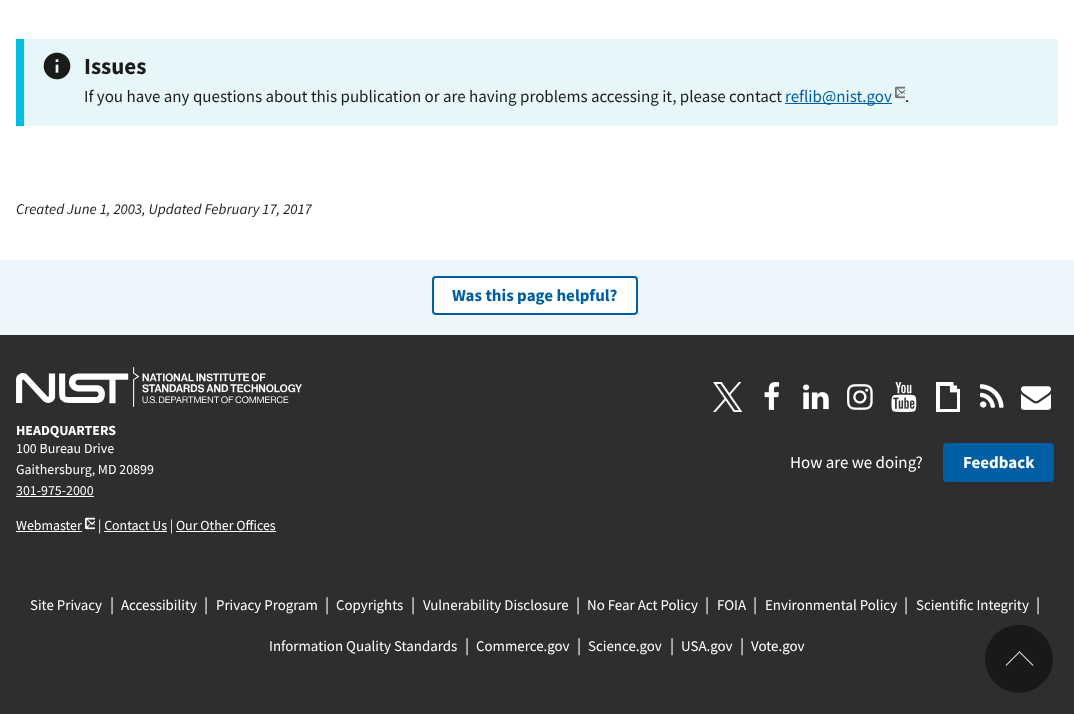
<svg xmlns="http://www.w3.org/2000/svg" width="1074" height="714">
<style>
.a{font:bold 23px Source Sans Pro;fill:#1b1b1b}
.b{font:16.95px Source Sans Pro;fill:#1b1b1b}
.c{font:16.95px Source Sans Pro;fill:#005ea2}
.d{font:italic 14.9px Source Sans Pro;fill:#1b1b1b}
.e{font:bold 16.95px Source Sans Pro;fill:#005ea2}
.f{font:bold 13.9px Source Sans Pro;fill:#fff}
.g{font:13.9px Source Sans Pro;fill:#fff}
.h{font:16.95px Source Sans Pro;fill:#fff}
.i{font:bold 16.95px Source Sans Pro;fill:#fff}
.j{font:14.9px Source Sans Pro;fill:#fff}
</style>
<rect width="100%" height="100%" fill="#fff"/>
<path fill="#e7f6f8" d="M24 39h1034v87H24z"/>
<path fill="#00bde3" d="M16 39h8v87H16z"/>
<image href="1.png" x="43" y="52" width="28" height="28"/>
<path fill="#005ea2" d="M785 103h107v1H785z"/>
<image href="2.png" x="895" y="86" width="10" height="13"/>
<path fill="#eff6fb" d="M0 260h1074v75H0z"/>
<rect fill="#fff" stroke="#005ea2" stroke-width="2" x="433" y="277" width="204" height="37" rx="3"/>
<path fill="#2e2e2e" d="M0 335h1074v379H0z"/>
<image href="3.png" x="16" y="367" width="286" height="40"/>
<path fill="#fff" d="M16 496h78v1H16z"/>
<path fill="#fff" d="M16 531h66v1H16z"/>
<image href="4.png" x="85" y="517" width="10" height="13"/>
<path fill="#fff" d="M104 531h63v1H104z"/>
<path fill="#fff" d="M176 531h100v1H176z"/>
<image href="5.png" x="713" y="382" width="30" height="30"/>
<image href="6.png" x="764" y="382" width="16" height="28"/>
<image href="7.png" x="803" y="384" width="26" height="26"/>
<image href="8.png" x="847" y="384" width="26" height="26"/>
<image href="9.png" x="891" y="382" width="26" height="30"/>
<image href="10.png" x="936" y="382" width="24" height="30"/>
<image href="11.png" x="980" y="384" width="24" height="24"/>
<image href="12.png" x="1021" y="386" width="30" height="24"/>
<rect fill="#005ea2" x="943" y="443" width="111" height="39" rx="4"/>
<image href="13.png" x="985" y="624" width="68" height="69"/>
<text class="a" x="84" y="74">Issues</text>
<text class="b" x="84" y="102">If you have any questions about this publication or are having problems accessing it, please contact</text>
<text class="c" x="785" y="102">reflib@nist.gov</text>
<text class="b" x="905" y="102">.</text>
<text class="d" x="16" y="214">Created June 1, 2003, Updated February 17, 2017</text>
<text class="e" x="452" y="301">Was this page helpful?</text>
<text class="f" x="16" y="435">HEADQUARTERS</text>
<text class="g" x="16" y="453">100 Bureau Drive</text>
<text class="g" x="16" y="474">Gaithersburg, MD 20899</text>
<text class="g" x="16" y="495">301-975-2000</text>
<text class="g" x="16" y="530">Webmaster</text>
<text class="g" x="98" y="530">| Contact Us | Our Other Offices</text>
<text class="h" x="790" y="468">How are we doing?</text>
<text class="i" x="963" y="468">Feedback</text>
<text class="j" x="30" y="610">Site Privacy</text>
<text class="h" x="110" y="610">|</text>
<text class="j" x="121" y="610">Accessibility</text>
<text class="h" x="204" y="610">|</text>
<text class="j" x="216" y="610">Privacy Program</text>
<text class="h" x="325" y="610">|</text>
<text class="j" x="336" y="610">Copyrights</text>
<text class="h" x="411" y="610">|</text>
<text class="j" x="423" y="610">Vulnerability Disclosure</text>
<text class="h" x="576" y="610">|</text>
<text class="j" x="587" y="610">No Fear Act Policy</text>
<text class="h" x="705" y="610">|</text>
<text class="j" x="717" y="610">FOIA</text>
<text class="h" x="753" y="610">|</text>
<text class="j" x="765" y="610">Environmental Policy</text>
<text class="h" x="904" y="610">|</text>
<text class="j" x="916" y="610">Scientific Integrity</text>
<text class="h" x="1036" y="610">|</text>
<text class="j" x="269" y="651">Information Quality Standards</text>
<text class="h" x="465" y="651">|</text>
<text class="j" x="476" y="651">Commerce.gov</text>
<text class="h" x="577" y="651">|</text>
<text class="j" x="588" y="651">Science.gov</text>
<text class="h" x="670" y="651">|</text>
<text class="j" x="681" y="651">USA.gov</text>
<text class="h" x="740" y="651">|</text>
<text class="j" x="751" y="651">Vote.gov</text>
</svg>
